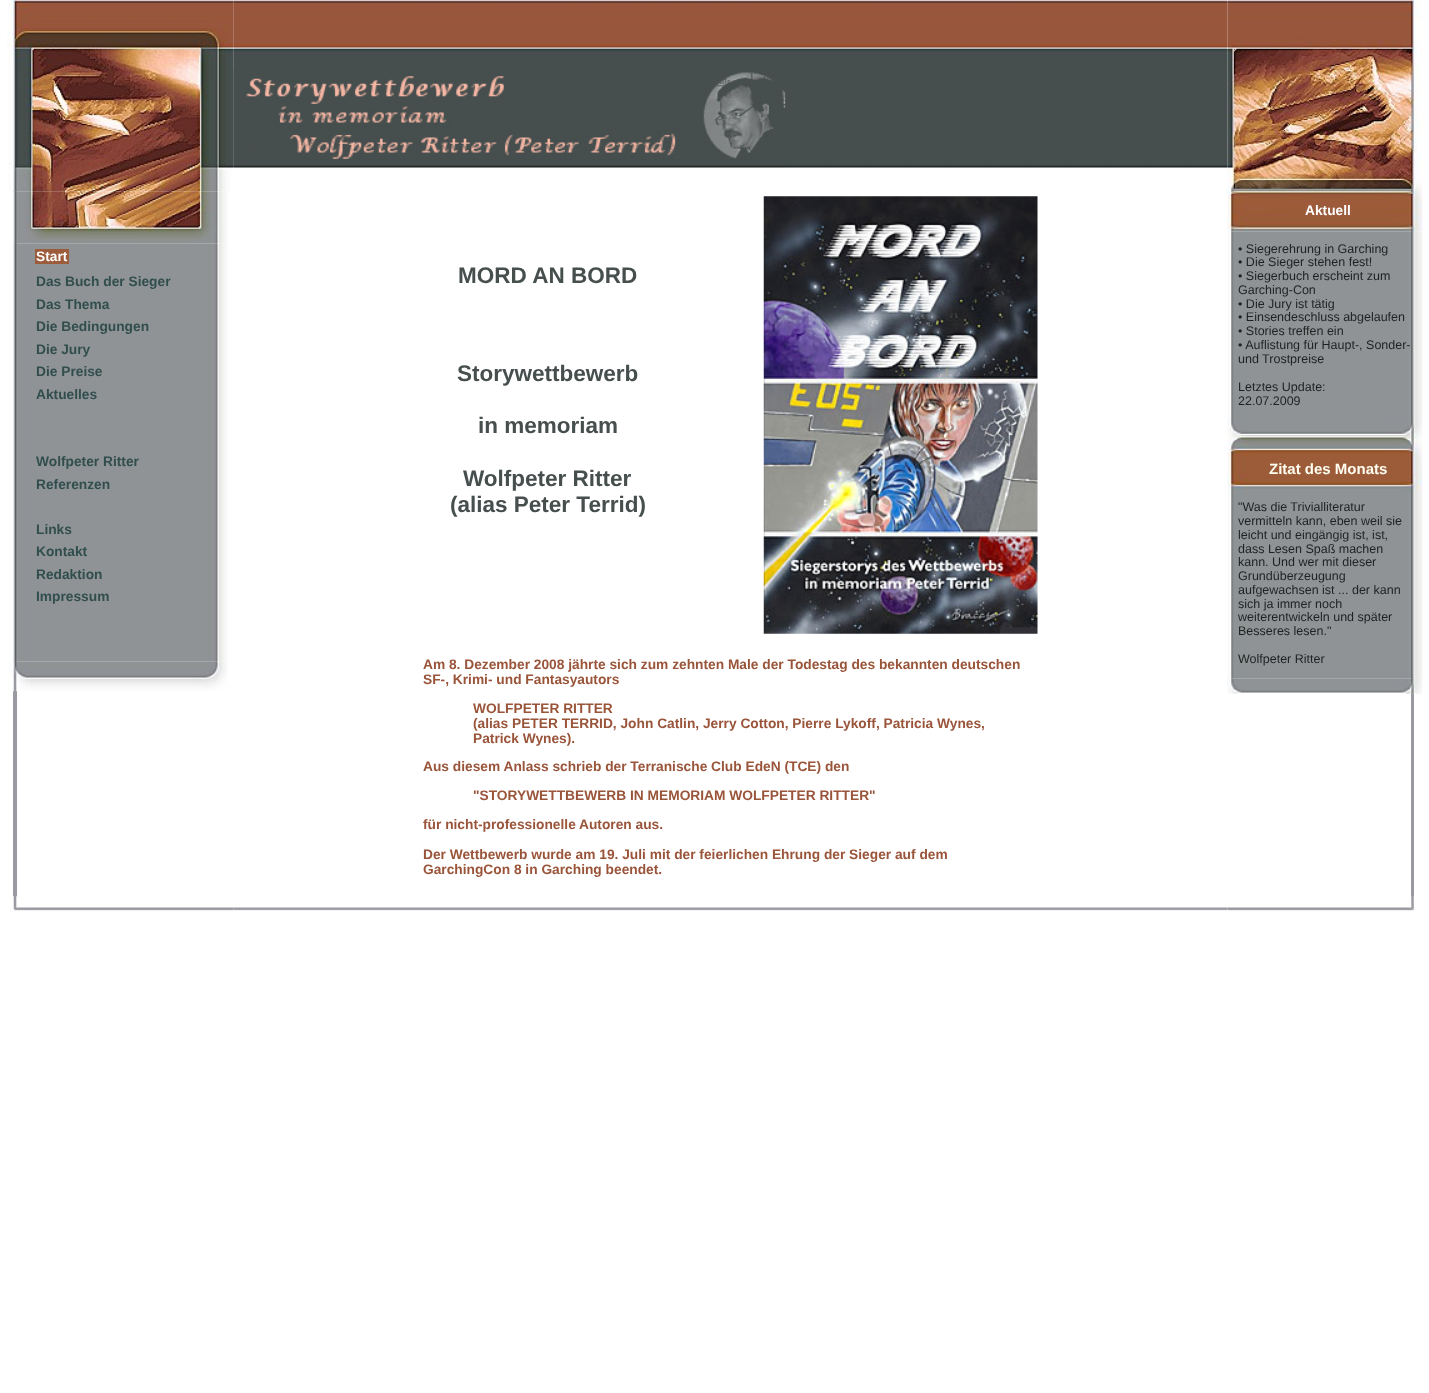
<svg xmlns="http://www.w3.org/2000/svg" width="1429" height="1393">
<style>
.a{font:bold 13.75px Liberation Sans;fill:#fff}
.b{font:bold 13.75px Liberation Sans;fill:#314e4d}
.c{font:bold 22.5px Liberation Sans;fill:#464f4e}
.d{font:bold 13.75px Liberation Sans;fill:#995439}
.e{font:12.5px Liberation Sans;fill:#1e2221}
.f{font:bold 15px Liberation Sans;fill:#fffef1}
</style>
<rect width="100%" height="100%" fill="#fff"/>
<image href="2.png" x="233" y="0" width="995" height="168"/>
<path fill="#9a9aa2" d="M13 191h4v706H13z"/>
<image href="1.png" x="7" y="0" width="227" height="192"/>
<image href="3.png" x="233" y="69" width="553" height="99"/>
<path fill="#9999a4" d="M1411 191h3v706H1411z"/>
<image href="9.png" x="1227" y="191" width="196" height="41"/>
<image href="4.png" x="1227" y="0" width="196" height="192"/>
<image href="6.png" x="13" y="243" width="215" height="419"/>
<image href="5.png" x="13" y="191" width="215" height="53"/>
<path fill="#9c5b3b" d="M35 249h34v15H35z"/>
<image href="7.png" x="7" y="661" width="221" height="31"/>
<image href="8.png" x="763" y="196" width="275" height="438"/>
<path fill="#9c5b3b" d="M1304 204h49v10H1304z"/>
<image href="10.png" x="1228" y="231" width="195" height="189"/>
<image href="11.png" x="1227" y="420" width="196" height="15"/>
<image href="12.png" x="1227" y="435" width="196" height="55"/>
<image href="13.png" x="1228" y="490" width="195" height="189"/>
<image href="14.png" x="1227" y="678" width="196" height="16"/>
<image href="16.png" x="233" y="907" width="995" height="4"/>
<image href="15.png" x="9" y="896" width="225" height="17"/>
<image href="17.png" x="1227" y="896" width="189" height="17"/>
<text class="a" x="36" y="261">Start</text>
<text class="b" x="36" y="286">Das Buch der Sieger</text>
<text class="b" x="36" y="309">Das Thema</text>
<text class="b" x="36" y="331">Die Bedingungen</text>
<text class="b" x="36" y="354">Die Jury</text>
<text class="b" x="36" y="376">Die Preise</text>
<text class="b" x="36" y="399">Aktuelles</text>
<text class="b" x="36" y="466">Wolfpeter Ritter</text>
<text class="b" x="36" y="489">Referenzen</text>
<text class="b" x="36" y="534">Links</text>
<text class="b" x="36" y="556">Kontakt</text>
<text class="b" x="36" y="579">Redaktion</text>
<text class="b" x="36" y="601">Impressum</text>
<text class="c" x="458" y="283">MORD AN BORD</text>
<text class="c" x="457" y="381">Storywettbewerb</text>
<text class="c" x="478" y="433">in memoriam</text>
<text class="c" x="463" y="486">Wolfpeter Ritter</text>
<text class="c" x="450" y="512">(alias Peter Terrid)</text>
<text class="d" x="423" y="669">Am 8. Dezember 2008 jährte sich zum zehnten Male der Todestag des bekannten deutschen</text>
<text class="d" x="423" y="684">SF-, Krimi- und Fantasyautors</text>
<text class="d" x="473" y="713">WOLFPETER RITTER</text>
<text class="d" x="473" y="728">(alias PETER TERRID, John Catlin, Jerry Cotton, Pierre Lykoff, Patricia Wynes,</text>
<text class="d" x="473" y="743">Patrick Wynes).</text>
<text class="d" x="423" y="771">Aus diesem Anlass schrieb der Terranische Club EdeN (TCE) den</text>
<text class="d" x="473" y="800">"STORYWETTBEWERB IN MEMORIAM WOLFPETER RITTER"</text>
<text class="d" x="423" y="829">für nicht-professionelle</text>
<text class="d" x="579" y="829">Autoren aus.</text>
<text class="d" x="423" y="859">Der Wettbewerb wurde am 19. Juli mit der feierlichen Ehrung der Sieger auf dem</text>
<text class="d" x="423" y="874">GarchingCon 8 in Garching beendet.</text>
<text class="a" x="1305" y="215">Aktuell</text>
<text class="e" x="1238" y="253">• Siegerehrung in Garching</text>
<text class="e" x="1238" y="266">• Die Sieger stehen fest!</text>
<text class="e" x="1238" y="280">• Siegerbuch erscheint zum</text>
<text class="e" x="1238" y="294">Garching-Con</text>
<text class="e" x="1238" y="308">• Die Jury ist tätig</text>
<text class="e" x="1238" y="321">• Einsendeschluss abgelaufen</text>
<text class="e" x="1238" y="335">• Stories treffen ein</text>
<text class="e" x="1238" y="349">• Auflistung für Haupt-, Sonder-</text>
<text class="e" x="1238" y="363">und Trostpreise</text>
<text class="e" x="1238" y="391">Letztes Update:</text>
<text class="e" x="1238" y="405">22.07.2009</text>
<text class="f" x="1269" y="474">Zitat des Monats</text>
<text class="e" x="1238" y="511">"Was die Trivialliteratur</text>
<text class="e" x="1238" y="525">vermitteln kann, eben weil sie</text>
<text class="e" x="1238" y="539">leicht und eingängig ist, ist,</text>
<text class="e" x="1238" y="553">dass Lesen Spaß machen</text>
<text class="e" x="1238" y="566">kann. Und wer mit dieser</text>
<text class="e" x="1238" y="580">Grundüberzeugung</text>
<text class="e" x="1238" y="594">aufgewachsen ist ... der kann</text>
<text class="e" x="1238" y="608">sich ja immer noch</text>
<text class="e" x="1238" y="621">weiterentwickeln und später</text>
<text class="e" x="1238" y="635">Besseres lesen."</text>
<text class="e" x="1238" y="663">Wolfpeter Ritter</text>
</svg>
